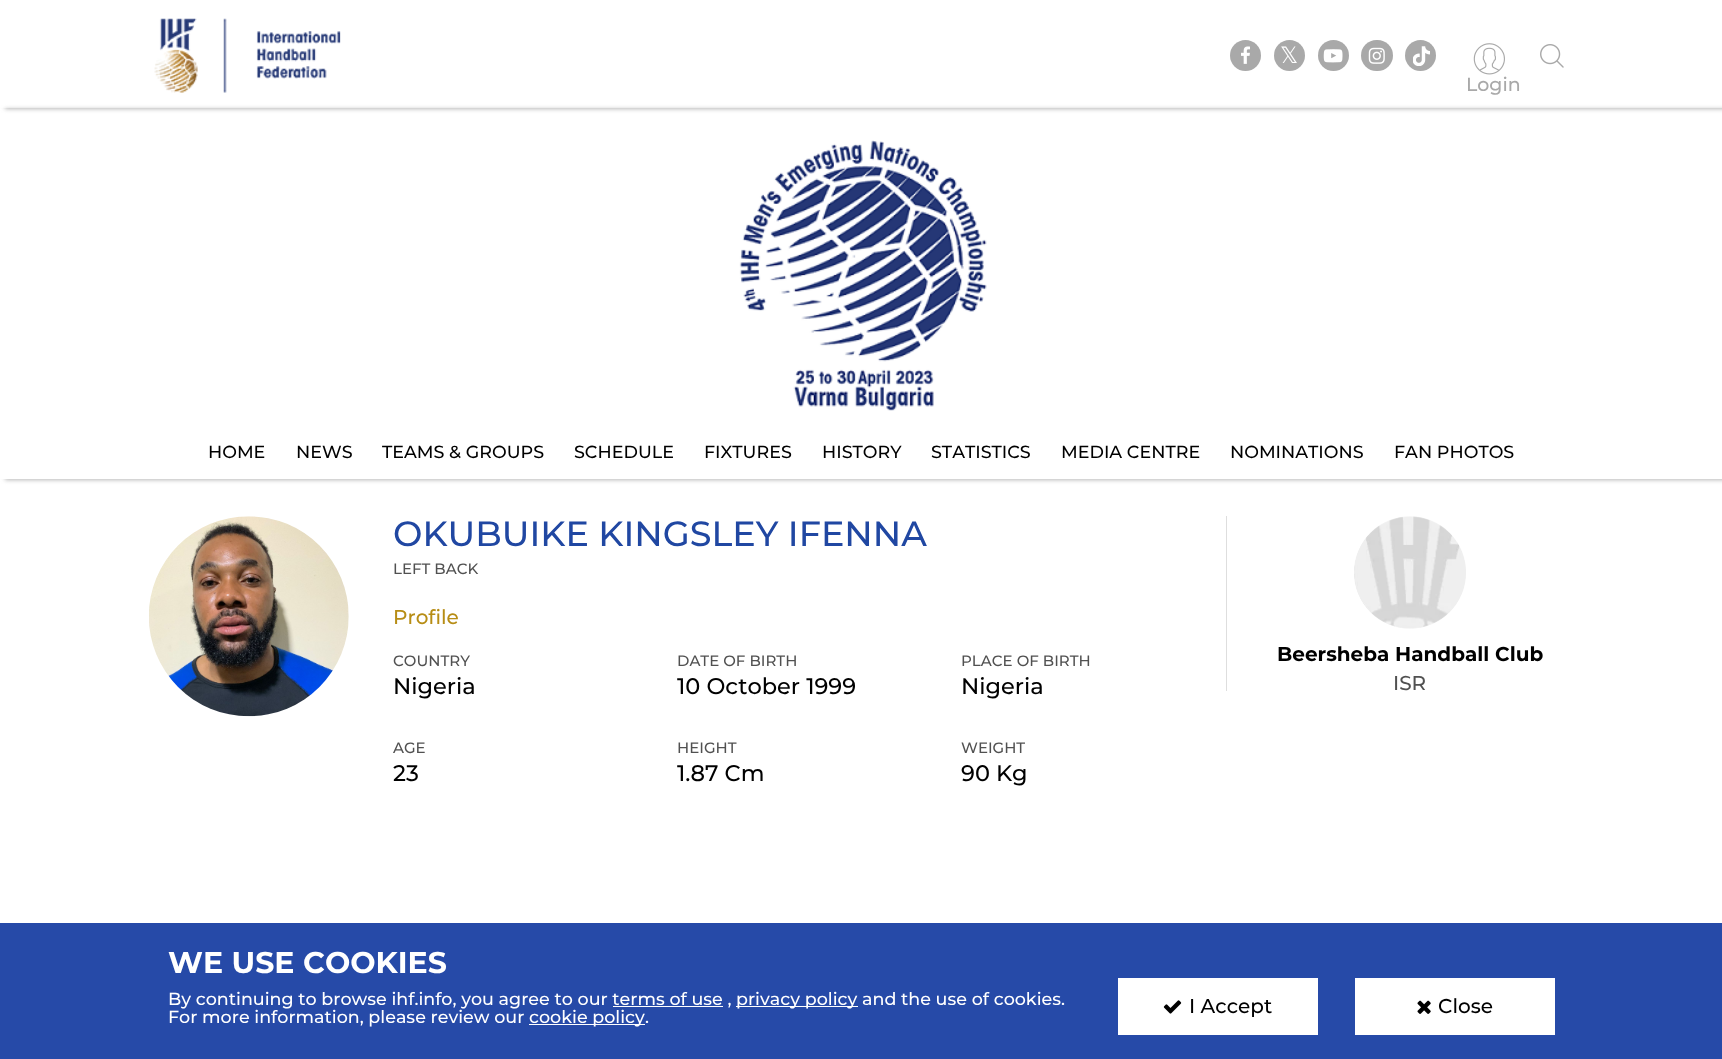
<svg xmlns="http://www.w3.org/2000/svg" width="1722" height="1059">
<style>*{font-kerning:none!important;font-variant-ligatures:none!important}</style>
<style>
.a{font:22.5px DejaVu Sans;fill:#fff}
.b{font:500 19px Montserrat;fill:#a9a9a9}
.c{font:500 17.5px Montserrat;fill:#000}
.d{font:500 35px Montserrat;fill:#2047a2}
.e{font:500 15px Montserrat;fill:#515151}
.f{font:500 20px Montserrat;fill:#b78d15}
.g{font:500 22.5px Montserrat;fill:#000}
.h{font:bold 20px Montserrat;fill:#000}
.i{font:500 20px Montserrat;fill:#515151}
.j{font:bold 30px Montserrat;fill:#fff}
.k{font:500 17.5px Montserrat;fill:#fff}
.l{font:500 20px Montserrat;fill:#000}
</style>
<defs>
<clipPath id="clip1"><path d="M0 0h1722v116h-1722zm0 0h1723v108h-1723z" clip-rule="evenodd"/></clipPath>
<clipPath id="clip2"><path d="M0 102h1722v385h-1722zm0 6h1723v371h-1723z" clip-rule="evenodd"/></clipPath>
</defs>
<rect width="100%" height="100%" fill="#fff"/>
<g clip-path="url(#clip1)">
<path fill="#b7b7b7" filter="blur(2px)" d="M5 1h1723v108H5z"/>
</g>
<image href="1.png" x="154" y="18" width="187" height="75"/>
<circle fill="#a9a9a9" cx="1245.5" cy="55.5" r="15.5"/>
<image href="2.png" x="1241" y="46" width="9" height="18"/>
<circle fill="#a9a9a9" cx="1289.5" cy="55.5" r="15.5"/>
<circle fill="#a9a9a9" cx="1333.5" cy="55.5" r="15.5"/>
<image href="3.png" x="1323" y="49" width="20" height="14"/>
<rect fill="#a9a9a9" x="1361" y="40" width="32" height="31" rx="15.5"/>
<image href="4.png" x="1368" y="47" width="17" height="17"/>
<circle fill="#a9a9a9" cx="1420.5" cy="55.5" r="15.5"/>
<image href="5.png" x="1413" y="46" width="17" height="20"/>
<image href="6.png" x="1540" y="44" width="24" height="24"/>
<image href="7.png" x="1473" y="43" width="32" height="32"/>
<g clip-path="url(#clip2)">
<path fill="#b7b7b7" filter="blur(2px)" d="M5 109h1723v371H5z"/>
</g>
<image href="8.png" x="739" y="140" width="248" height="271"/>
<image href="9.png" x="149" y="516" width="200" height="201"/>
<path fill="#dedede" d="M1226 516h1v175H1226z"/>
<image href="10.png" x="1354" y="516" width="112" height="113"/>
<path fill="#264aa8" d="M0 923h1722v136H0z"/>
<path fill="#fff" d="M736 1006h122v1H736z"/>
<path fill="#fff" d="M613 1006h110v1H613z"/>
<path fill="#fff" d="M529 1024h116v1H529z"/>
<path fill="#fff" d="M1118 978h200v57H1118z"/>
<image href="11.png" x="1163" y="1000" width="19" height="14"/>
<path fill="#fff" d="M1355 978h200v57H1355z"/>
<image href="12.png" x="1417" y="1000" width="14" height="14"/>
<text class="a" x="1280" y="63">𝕏</text>
<text class="b" x="1466" y="91">Login</text>
<text class="c" x="208" y="458">HOME</text>
<text class="c" x="296" y="458">NEWS</text>
<text class="c" x="382" y="458">TEAMS &amp; GROUPS</text>
<text class="c" x="574" y="458">SCHEDULE</text>
<text class="c" x="704" y="458">FIXTURES</text>
<text class="c" x="822" y="458">HISTORY</text>
<text class="c" x="931" y="458">STATISTICS</text>
<text class="c" x="1061" y="458">MEDIA CENTRE</text>
<text class="c" x="1230" y="458">NOMINATIONS</text>
<text class="c" x="1394" y="458">FAN PHOTOS</text>
<text class="d" x="393" y="546">OKUBUIKE KINGSLEY IFENNA</text>
<text class="e" x="393" y="574">LEFT BACK</text>
<text class="f" x="393" y="624">Profile</text>
<text class="e" x="393" y="666">COUNTRY</text>
<text class="g" x="393" y="694">Nigeria</text>
<text class="e" x="677" y="666">DATE OF BIRTH</text>
<text class="g" x="677" y="694">10 October 1999</text>
<text class="e" x="961" y="666">PLACE OF BIRTH</text>
<text class="g" x="961" y="694">Nigeria</text>
<text class="e" x="393" y="753">AGE</text>
<text class="g" x="393" y="781">23</text>
<text class="e" x="677" y="753">HEIGHT</text>
<text class="g" x="677" y="781">1.87 Cm</text>
<text class="e" x="961" y="753">WEIGHT</text>
<text class="g" x="961" y="781">90 Kg</text>
<text class="h" x="1277" y="661">Beersheba Handball Club</text>
<text class="i" x="1393" y="690">ISR</text>
<text class="j" x="168" y="973">WE USE COOKIES</text>
<text class="k" x="168" y="1005">By continuing to browse ihf.info, you agree to our terms of use ,</text>
<text class="k" x="736" y="1005">privacy policy and the use of cookies.</text>
<text class="k" x="168" y="1023">For more information, please review our</text>
<text class="k" x="529" y="1023">cookie policy.</text>
<text class="l" x="1189" y="1013">I Accept</text>
<text class="l" x="1438" y="1013">Close</text>
</svg>
